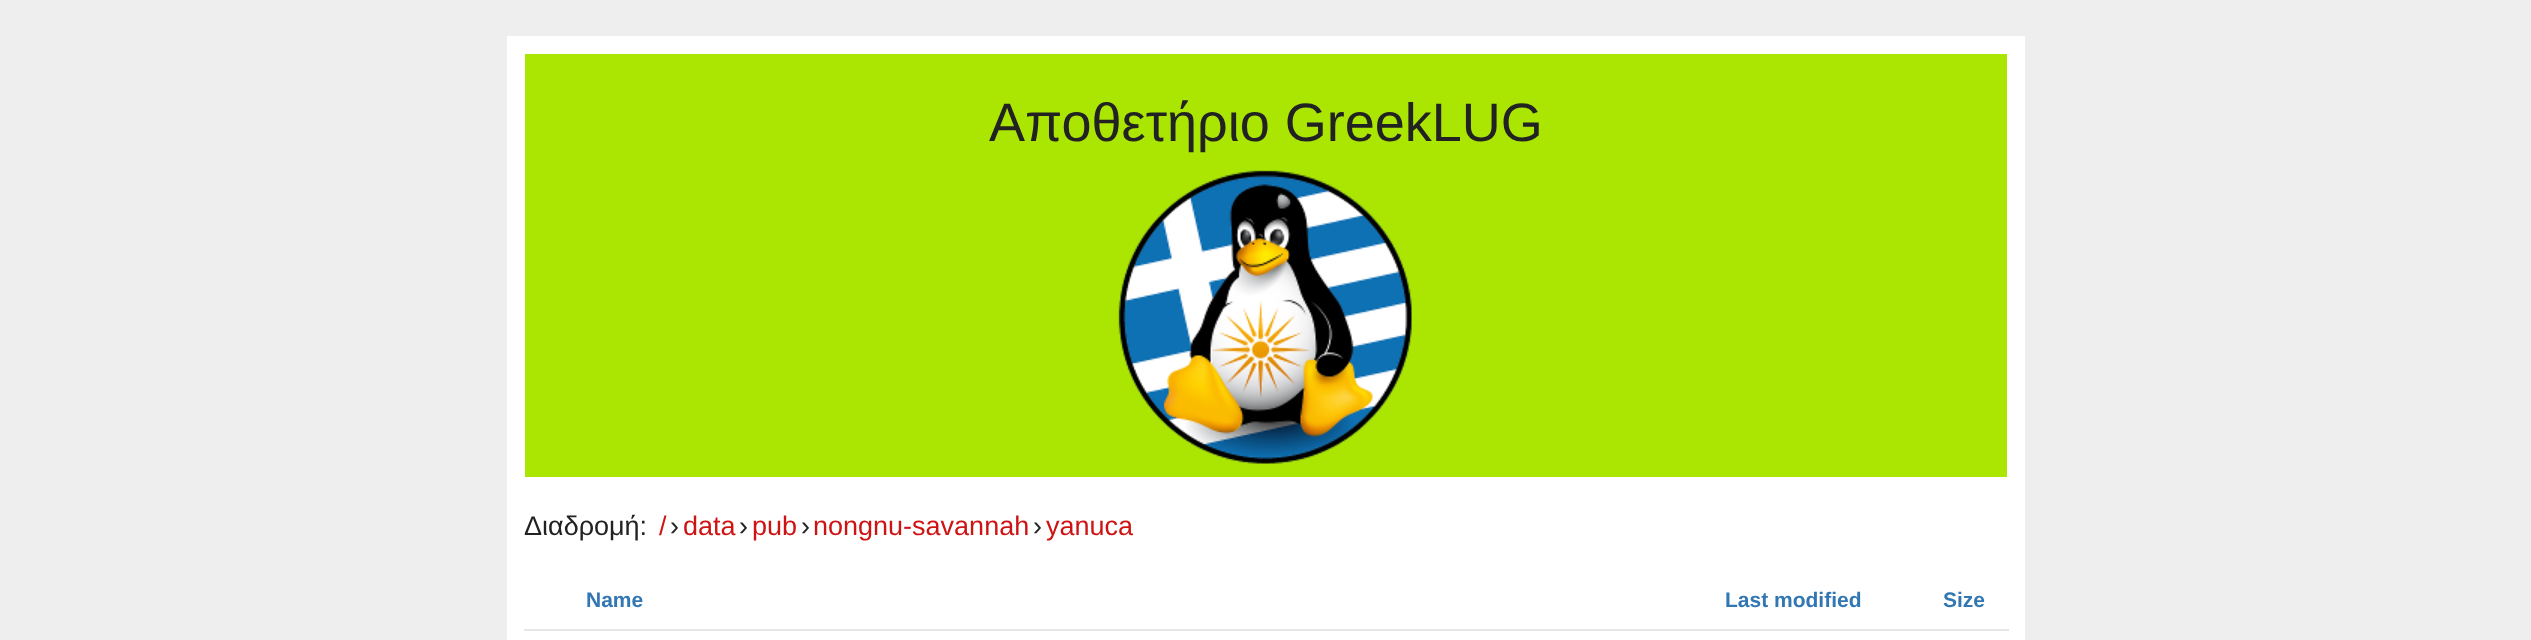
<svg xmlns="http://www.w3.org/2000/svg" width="2531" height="640">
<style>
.a{font:54px Liberation Sans;fill:#222}
.b{font:27px Liberation Sans;fill:#222}
.c{font:27px Liberation Sans;fill:#ce1313}
.d{font:bold 21px Liberation Sans;fill:#3277b3}
</style>
<rect width="100%" height="100%" fill="#eee"/>
<path fill="#fff" d="M507 36h1518v604H507z"/>
<path fill="#abe603" d="M525 54h1482v423H525z"/>
<image href="1.png" x="1118" y="170" width="294" height="294"/>
<path fill="#e6e6e6" d="M524 629h1485v2H524z"/>
<text class="a" x="989" y="141">Αποθετήριο GreekLUG</text>
<text class="b" x="524" y="535">Διαδρομή:</text>
<text class="c" x="659" y="535">/</text>
<text class="b" x="670" y="535">›</text>
<text class="c" x="683" y="535">data</text>
<text class="b" x="739" y="535">›</text>
<text class="c" x="752" y="535">pub</text>
<text class="b" x="801" y="535">›</text>
<text class="c" x="813" y="535">nongnu-savannah</text>
<text class="b" x="1033" y="535">›</text>
<text class="c" x="1046" y="535">yanuca</text>
<text class="d" x="586" y="607">Name</text>
<text class="d" x="1725" y="607">Last modified</text>
<text class="d" x="1943" y="607">Size</text>
</svg>
